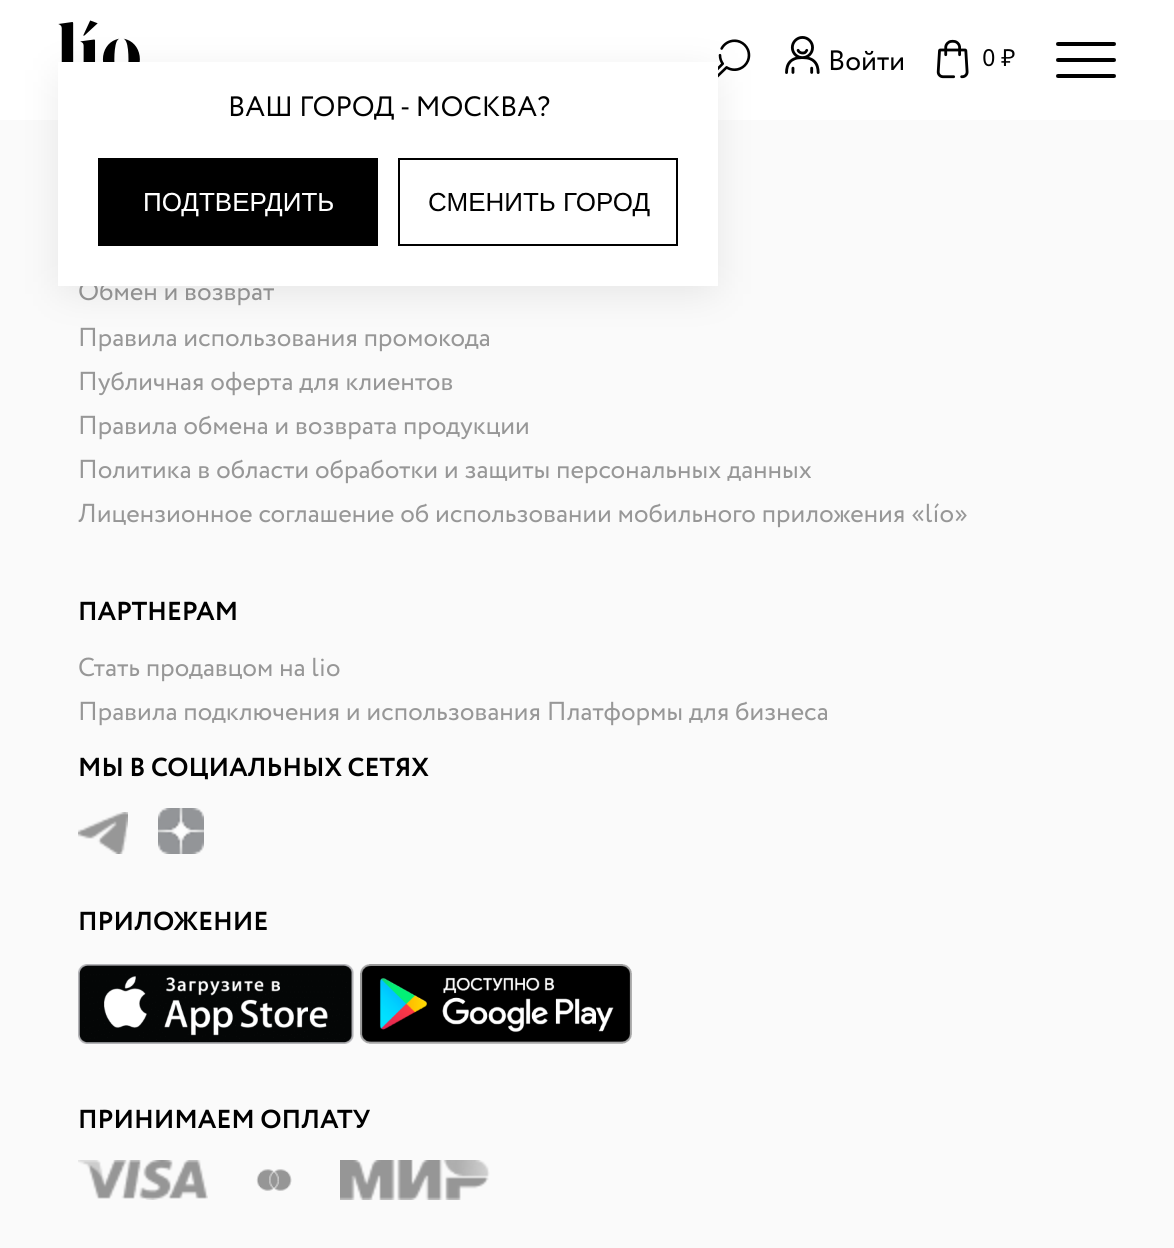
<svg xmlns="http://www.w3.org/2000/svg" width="1174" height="1248">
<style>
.a{font:26px Liberation Sans;fill:#fff}
.b{font:26px Liberation Sans;fill:#000}
</style>
<rect width="100%" height="100%" fill="#fafafa"/>
<path fill="#fff" d="M0 0h1174v120H0z"/>
<rect fill="#000" x="1056" y="42" width="60" height="4" rx="2"/>
<rect fill="#000" x="1056" y="58" width="60" height="4" rx="2"/>
<rect fill="#000" x="1056" y="74" width="60" height="4" rx="2"/>
<image href="1.png" x="58" y="20" width="82" height="42"/>
<image href="2.png" x="718" y="39" width="33" height="39"/>
<image href="3.png" x="785" y="36" width="35" height="38"/>
<image href="4.png" x="830" y="50" width="73" height="21"/>
<image href="5.png" x="936" y="39" width="33" height="40"/>
<image href="6.png" x="983" y="49" width="32" height="18"/>
<image href="8.png" x="79" y="286" width="195" height="20"/>
<image href="9.png" x="80" y="327" width="409" height="25"/>
<path fill="#00000014" filter="blur(18px)" d="M58 70h660v224H58z"/>
<path fill="#fff" d="M58 62h660v224H58z"/>
<image href="7.png" x="230" y="96" width="320" height="24"/>
<path fill="#000" d="M98 158h280v88H98z"/>
<path fill="none" stroke="#000" stroke-width="2" d="M399 159h278v86H399z"/>
<image href="10.png" x="80" y="371" width="373" height="25"/>
<image href="11.png" x="80" y="415" width="448" height="25"/>
<image href="12.png" x="80" y="459" width="731" height="25"/>
<image href="13.png" x="78" y="503" width="889" height="25"/>
<image href="14.png" x="80" y="601" width="156" height="19"/>
<image href="15.png" x="79" y="657" width="261" height="25"/>
<image href="16.png" x="80" y="701" width="747" height="25"/>
<image href="17.png" x="80" y="757" width="349" height="23"/>
<image href="18.png" x="78" y="812" width="50" height="42"/>
<image href="19.png" x="158" y="808" width="46" height="46"/>
<image href="20.png" x="80" y="911" width="187" height="20"/>
<image href="21.png" x="78" y="964" width="276" height="80"/>
<image href="22.png" x="360" y="964" width="272" height="80"/>
<image href="23.png" x="80" y="1109" width="290" height="20"/>
<image href="24.png" x="78" y="1160" width="130" height="40"/>
<image href="25.png" x="256" y="1169" width="36" height="22"/>
<image href="26.png" x="340" y="1160" width="150" height="40"/>
<text class="a" x="143" y="211">ПОДТВЕРДИТЬ</text>
<text class="b" x="428" y="211">СМЕНИТЬ ГОРОД</text>
</svg>
